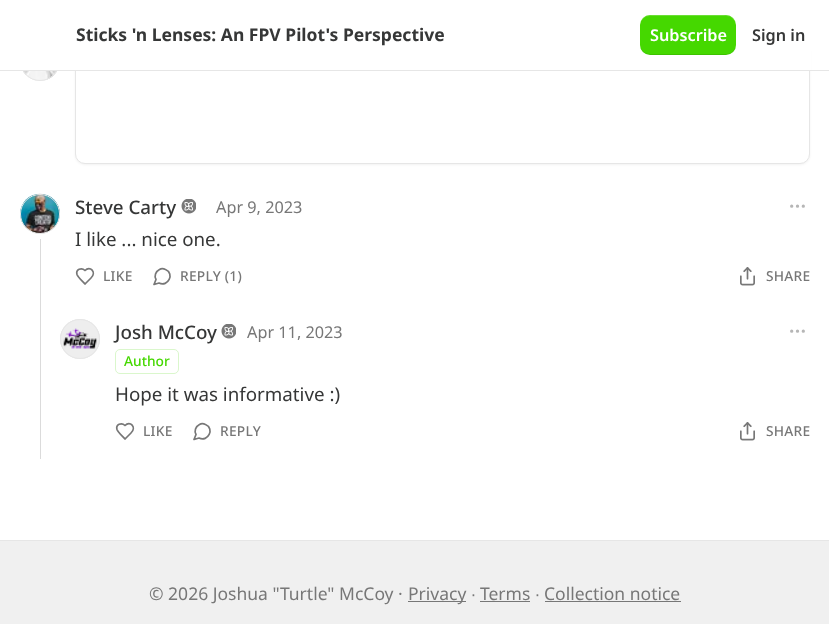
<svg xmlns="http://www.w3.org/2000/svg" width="829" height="624">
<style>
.a{font:bold 17.5px Noto Sans;fill:#363737}
.b{font:600 16.25px Noto Sans;fill:#fff}
.c{font:600 16.25px Noto Sans;fill:#363737}
.d{font:500 18.75px Noto Sans;fill:#363737}
.e{font:16.25px Noto Sans;fill:#777}
.f{font:18.75px Noto Sans;fill:#363737}
.g{font:500 13.75px Noto Sans;letter-spacing:0.25px;fill:#777}
.h{font:500 13.75px Noto Sans;fill:#45d800}
.i{font:17.5px Noto Sans;fill:#777}
.j{font:17.5px Liberation Sans;fill:#777}
</style>
<rect width="100%" height="100%" fill="#fff"/>
<circle fill="none" stroke="#e6e6e6" cx="40" cy="61" r="19.5"/>
<image href="1.png" x="23" y="71" width="34" height="10"/>
<circle fill="none" stroke="#e6e6e6" cx="40" cy="61" r="19.5"/>
<rect fill="#0000000d" filter="blur(1px)" x="75" y="43" width="735" height="122" rx="10"/>
<rect fill="#fff" stroke="#e6e6e6" x="75.5" y="41.5" width="734" height="122" rx="9.5"/>
<path fill="#fff" d="M20 41h791v29H20z"/>
<path fill="#e6e6e6" d="M0 70h829v1H0z"/>
<rect fill="#45d800" x="640" y="15" width="96" height="40" rx="10"/>
<path fill="#0000001a" d="M640 44c0 13 13 11 23 11h50c10 0 23 2 23-11c0 5-4 10-10 10h-76c-6 0-10-5-10-10z"/>
<path fill="#ffffff33" d="M650 16h76c6 0 10 5 10 10c0-13-13-11-23-11h-50c-10 0-23-2-23 11c0-5 4-10 10-10z"/>
<path fill="#dbdbdb" d="M40 239h1v220H40z"/>
<circle fill="none" stroke="#e6e6e6" cx="40" cy="214" r="19.5"/>
<image href="2.png" x="20" y="193" width="40" height="41"/>
<circle fill="none" stroke="#e6e6e6" cx="40" cy="214" r="19.5"/>
<image href="3.png" x="181" y="199" width="15" height="15"/>
<circle fill="none" stroke="#b6b6b6" stroke-width="1.7" cx="797.5" cy="206.2" r="0.8"/>
<circle fill="none" stroke="#b6b6b6" stroke-width="1.7" cx="803.3" cy="206.2" r="0.8"/>
<circle fill="none" stroke="#b6b6b6" stroke-width="1.7" cx="791.7" cy="206.2" r="0.8"/>
<path fill="none" stroke="#777" stroke-width="1.7" stroke-linecap="round" stroke-linejoin="round" d="M91 278c6-6-1-12.5-6-7.5c-3.5-3.5-9.5-1-8 4c1 3 6 7 8 9.5z"/>
<path fill="none" stroke="#777" stroke-width="1.7" stroke-linecap="round" stroke-linejoin="round" d="M159 283c9 4.5 16-9.5 6.5-13.5c-2-1-4.5-1-6 0c-4 2-5.5 6.5-3.5 10l-2 5z"/>
<image href="4.png" x="740" y="267" width="15" height="19"/>
<circle fill="none" stroke="#e6e6e6" cx="80" cy="339" r="19.5"/>
<circle fill="#eee" cx="80" cy="339" r="20"/>
<image href="5.png" x="63" y="328" width="34" height="21"/>
<circle fill="none" stroke="#e6e6e6" cx="80" cy="339" r="19.5"/>
<image href="3.png" x="221" y="324" width="15" height="15"/>
<rect fill="none" stroke="#daf7cc" x="115.5" y="349.5" width="63" height="24" rx="4.5"/>
<circle fill="none" stroke="#b6b6b6" stroke-width="1.7" cx="797.5" cy="331.2" r="0.8"/>
<circle fill="none" stroke="#b6b6b6" stroke-width="1.7" cx="803.3" cy="331.2" r="0.8"/>
<circle fill="none" stroke="#b6b6b6" stroke-width="1.7" cx="791.7" cy="331.2" r="0.8"/>
<path fill="none" stroke="#777" stroke-width="1.7" stroke-linecap="round" stroke-linejoin="round" d="M131 433c6-6-1-12.5-6-7.5c-3.5-3.5-9.5-1-8 4c1 3 6 7 8 9.5z"/>
<path fill="none" stroke="#777" stroke-width="1.7" stroke-linecap="round" stroke-linejoin="round" d="M199 438c9 4.5 16-9.5 6.5-13.5c-2-1-4.5-1-6 0c-4 2-5.5 6.5-3.5 10l-2 5z"/>
<image href="4.png" x="740" y="422" width="15" height="19"/>
<path fill="#f0f0f0" d="M0 541h829v83H0z"/>
<path fill="#e6e6e6" d="M0 540h829v1H0z"/>
<path fill="#777" d="M408 601h58v1H408z"/>
<path fill="#777" d="M480 601h50v1H480z"/>
<path fill="#777" d="M545 601h136v1H545z"/>
<text class="a" x="76" y="41">Sticks 'n Lenses: An FPV Pilot's Perspective</text>
<text class="b" x="650" y="41">Subscribe</text>
<text class="c" x="752" y="41">Sign in</text>
<text class="d" x="75" y="214">Steve Carty</text>
<text class="e" x="216" y="213">Apr 9, 2023</text>
<text class="f" x="75" y="246">I like ... nice one.</text>
<text class="g" x="103" y="281">LIKE</text>
<text class="g" x="180" y="281">REPLY (1)</text>
<text class="g" x="766" y="281">SHARE</text>
<text class="d" x="115" y="339">Josh McCoy</text>
<text class="e" x="247" y="338">Apr 11, 2023</text>
<text class="h" x="124" y="366">Author</text>
<text class="f" x="115" y="401">Hope it was informative :)</text>
<text class="g" x="143" y="436">LIKE</text>
<text class="g" x="220" y="436">REPLY</text>
<text class="g" x="766" y="436">SHARE</text>
<text class="i" x="149" y="600">© 2026 Joshua "Turtle" McCoy ·</text>
<text class="i" x="408" y="600">Privacy</text>
<text class="j" x="471" y="600">∙</text>
<text class="i" x="480" y="600">Terms</text>
<text class="j" x="535" y="600">∙</text>
<text class="i" x="544" y="600">Collection notice</text>
</svg>
